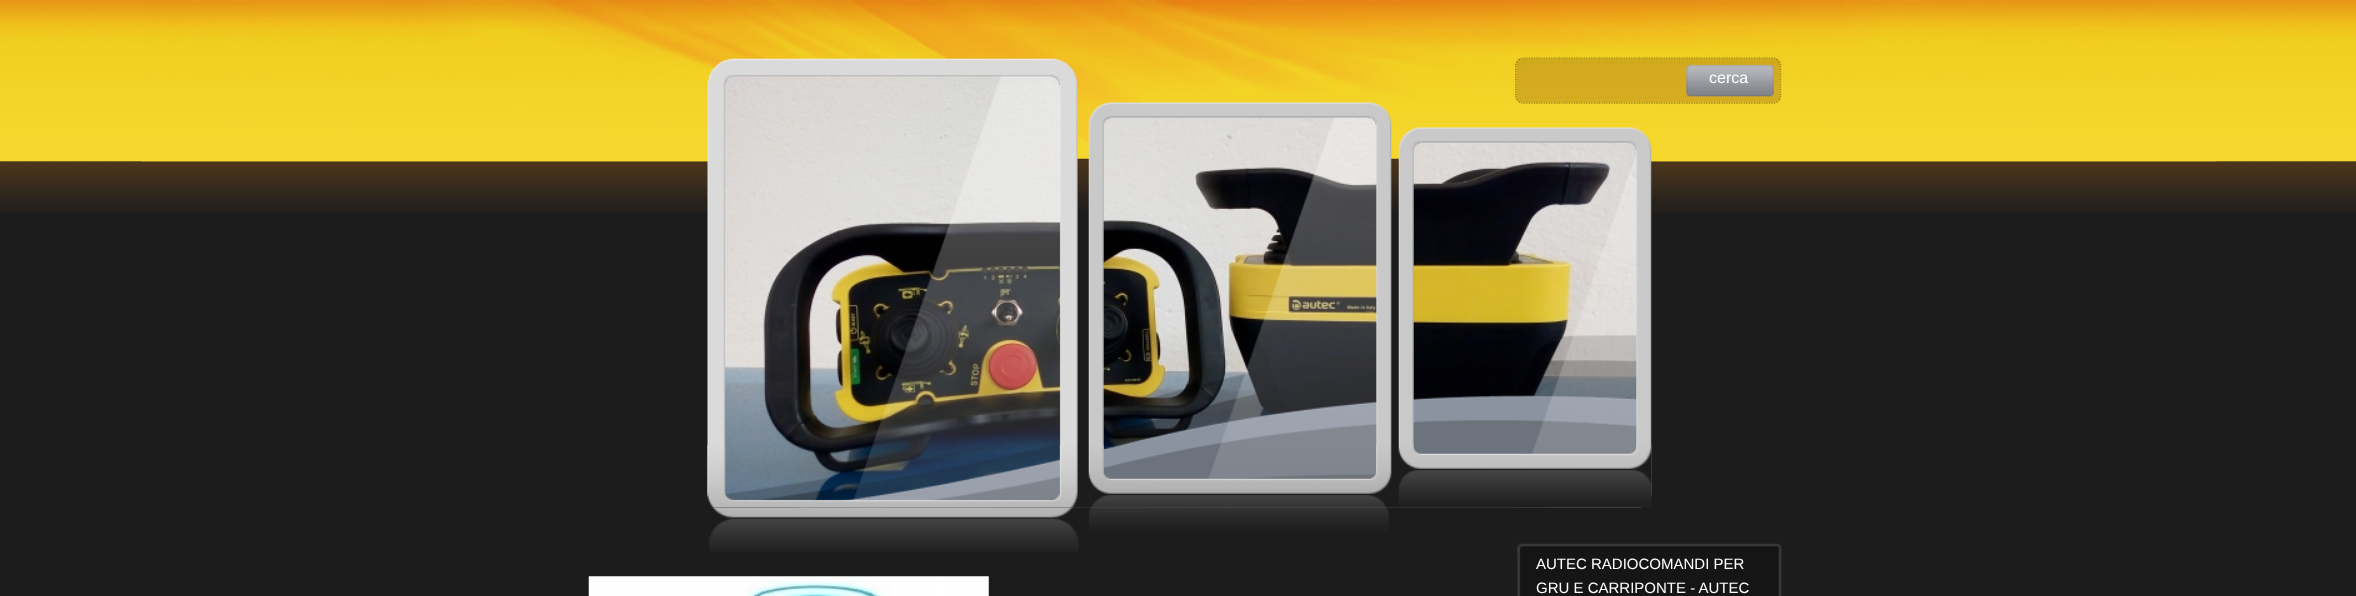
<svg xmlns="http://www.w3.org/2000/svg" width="2356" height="596">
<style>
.a{font:16px Liberation Sans;fill:#fff}
.b{font:15px Liberation Sans;fill:#fff}
</style>
<rect width="100%" height="100%" fill="#1c1c1c"/>
<image href="1.png" x="0" y="0" width="2356" height="213"/>
<image href="2.png" x="141" y="0" width="2076" height="162"/>
<image href="7.png" x="709" y="507" width="680" height="45"/>
<image href="3.png" x="716" y="74" width="926" height="434"/>
<image href="5.png" x="716" y="74" width="926" height="434"/>
<image href="4.png" x="707" y="58" width="945" height="439"/>
<image href="6.png" x="707" y="445" width="945" height="63"/>
<image href="8.png" x="588" y="576" width="401" height="20"/>
<image href="9.png" x="1515" y="57" width="267" height="47"/>
<image href="10.png" x="1517" y="543" width="265" height="53"/>
<image href="11.png" x="1517" y="543" width="265" height="13"/>
<text class="a" x="1709" y="83">cerca</text>
<text class="b" x="1536" y="569">AUTEC RADIOCOMANDI PER</text>
<text class="b" x="1536" y="593">GRU E CARRIPONTE - AUTEC</text>
</svg>
